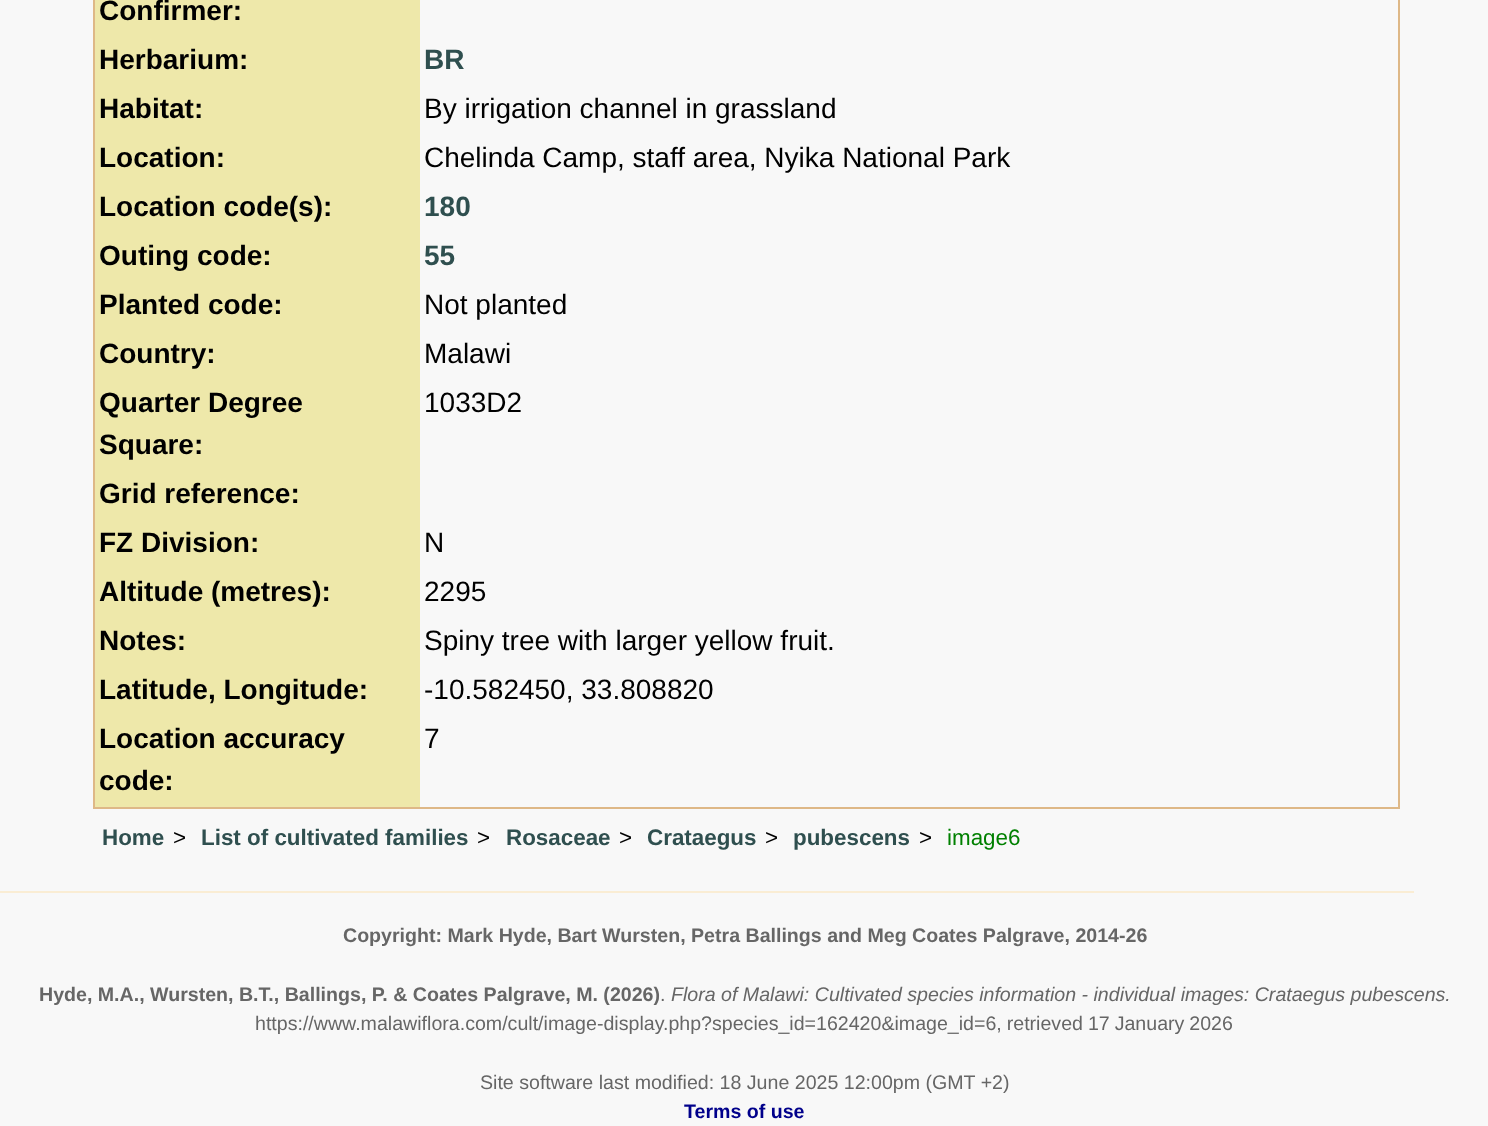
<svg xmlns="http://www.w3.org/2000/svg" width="1488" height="1126">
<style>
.a{font:bold 28px Liberation Sans;fill:#000}
.b{font:bold 28px Liberation Sans;fill:#2f4f4f}
.c{font:28px Liberation Sans;fill:#000}
.d{font:bold 22.4px Liberation Sans;fill:#2f4f4f}
.e{font:22.4px Liberation Sans;fill:#000}
.f{font:22.4px Liberation Sans;fill:#008000}
.g{font:bold 19.6px Liberation Sans;fill:#666}
.h{font:19.6px Liberation Sans;fill:#666}
.i{font:italic 19.6px Liberation Sans;fill:#666}
.j{font:bold 19.6px Liberation Sans;fill:#00008b}
</style>
<rect width="100%" height="100%" fill="#f8f8f8"/>
<path fill="#deb887" d="M1398 0h2v809H1398z"/>
<path fill="#deb887" d="M93 807h1307v2H93z"/>
<path fill="#deb887" d="M93 0h2v809H93z"/>
<path fill="#eee8aa" d="M95 0h325v807H95z"/>
<path fill="#faedd4" d="M0 891h1414v2H0z"/>
<text class="a" x="99" y="20">Confirmer:</text>
<text class="a" x="99" y="69">Herbarium:</text>
<text class="b" x="424" y="69">BR</text>
<text class="a" x="99" y="118">Habitat:</text>
<text class="c" x="424" y="118">By irrigation channel in grassland</text>
<text class="a" x="99" y="167">Location:</text>
<text class="c" x="424" y="167">Chelinda Camp, staff area, Nyika National Park</text>
<text class="a" x="99" y="216">Location code(s):</text>
<text class="b" x="424" y="216">180</text>
<text class="a" x="99" y="265">Outing code:</text>
<text class="b" x="424" y="265">55</text>
<text class="a" x="99" y="314">Planted code:</text>
<text class="c" x="424" y="314">Not planted</text>
<text class="a" x="99" y="363">Country:</text>
<text class="c" x="424" y="363">Malawi</text>
<text class="a" x="99" y="412">Quarter Degree</text>
<text class="a" x="99" y="454">Square:</text>
<text class="c" x="424" y="412">1033D2</text>
<text class="a" x="99" y="503">Grid reference:</text>
<text class="a" x="99" y="552">FZ Division:</text>
<text class="c" x="424" y="552">N</text>
<text class="a" x="99" y="601">Altitude (metres):</text>
<text class="c" x="424" y="601">2295</text>
<text class="a" x="99" y="650">Notes:</text>
<text class="c" x="424" y="650">Spiny tree with larger yellow fruit.</text>
<text class="a" x="99" y="699">Latitude, Longitude:</text>
<text class="c" x="424" y="699">-10.582450, 33.808820</text>
<text class="a" x="99" y="748">Location accuracy</text>
<text class="a" x="99" y="790">code:</text>
<text class="c" x="424" y="748">7</text>
<text class="d" x="102" y="845">Home</text>
<text class="e" x="173" y="845">&gt;</text>
<text class="d" x="201" y="845">List of cultivated families</text>
<text class="e" x="477" y="845">&gt;</text>
<text class="d" x="506" y="845">Rosaceae</text>
<text class="e" x="619" y="845">&gt;</text>
<text class="d" x="647" y="845">Crataegus</text>
<text class="e" x="765" y="845">&gt;</text>
<text class="d" x="793" y="845">pubescens</text>
<text class="e" x="919" y="845">&gt;</text>
<text class="f" x="947" y="845">image6</text>
<text class="g" x="343" y="942">Copyright: Mark Hyde, Bart Wursten, Petra Ballings and Meg Coates Palgrave, 2014-26</text>
<text class="g" x="39" y="1001">Hyde, M.A., Wursten, B.T., Ballings, P. &amp; Coates Palgrave, M. (2026)</text>
<text class="h" x="660" y="1001">.</text>
<text class="i" x="671" y="1001">Flora of Malawi: Cultivated species information - individual images: Crataegus pubescens.</text>
<text class="h" x="255" y="1030" word-spacing="-0.5">https://www.malawiflora.com/cult/image-display.php?species_id=162420&amp;image_id=6, retrieved 17 January 2026</text>
<text class="h" x="480" y="1089">Site software last modified: 18 June 2025 12:00pm (GMT +2)</text>
<text class="j" x="684" y="1118">Terms of use</text>
</svg>
